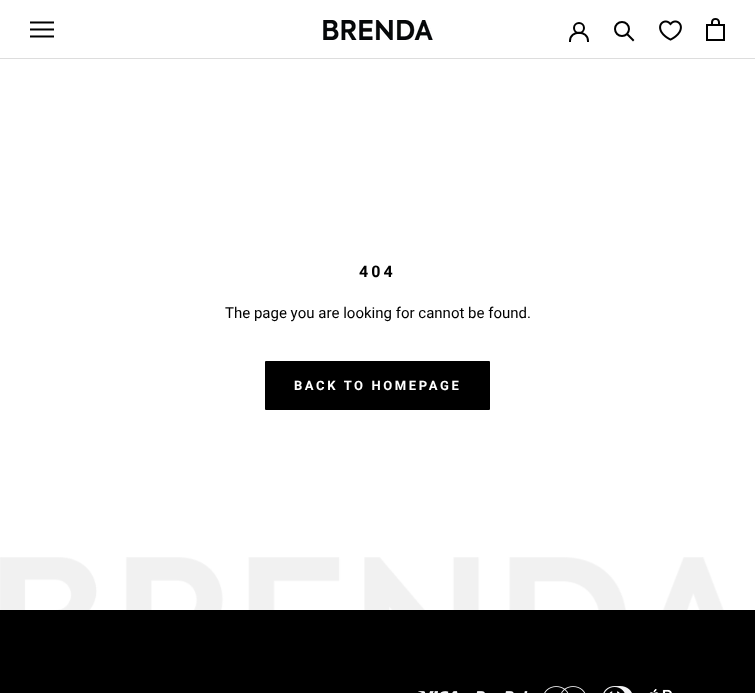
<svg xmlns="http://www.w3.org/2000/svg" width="755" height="693">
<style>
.a{font:bold 16px Heebo;letter-spacing:3px;fill:#000}
.b{font:15px Heebo;fill:#000}
.c{font:bold 13px Heebo;letter-spacing:2.6px;fill:#fff}
</style>
<rect width="100%" height="100%" fill="#fff"/>
<path fill="#ddd" d="M0 58h755v1H0z"/>
<image href="1.png" x="30" y="21" width="24" height="17"/>
<image href="2.png" x="323" y="20" width="110" height="20"/>
<path fill="none" stroke="#000" stroke-width="2" stroke-linecap="square" d="M570 41c0-11 18-11 18 0"/>
<circle fill="none" stroke="#000" stroke-width="2" cx="579" cy="28" r="5"/>
<path fill="none" stroke="#000" stroke-width="2" stroke-linecap="square" d="M633 40l-5.5-5.5"/>
<circle fill="none" stroke="#000" stroke-width="2" cx="622" cy="29" r="7"/>
<image href="3.png" x="659" y="20" width="23" height="21"/>
<image href="4.png" x="706" y="18" width="19" height="23"/>
<path fill="none" stroke="#000" d="M265.5 361.5h224v48H265.5z"/>
<path fill="#000" d="M266 362h223v47H266z"/>
<path fill="#000" d="M0 610h755v83H0z"/>
<image href="5.png" x="0" y="557" width="724" height="53"/>
<image href="6.png" x="418" y="691" width="40" height="2"/>
<image href="7.png" x="476" y="691" width="52" height="2"/>
<image href="8.png" x="544" y="686" width="42" height="7"/>
<image href="9.png" x="603" y="686" width="29" height="7"/>
<image href="10.png" x="649" y="689" width="23" height="4"/>
<text class="a" x="359" y="277">404</text>
<text class="b" x="225" y="318">The page you are looking for cannot be found.</text>
<text class="c" x="294" y="390">BACK TO HOMEPAGE</text>
</svg>
